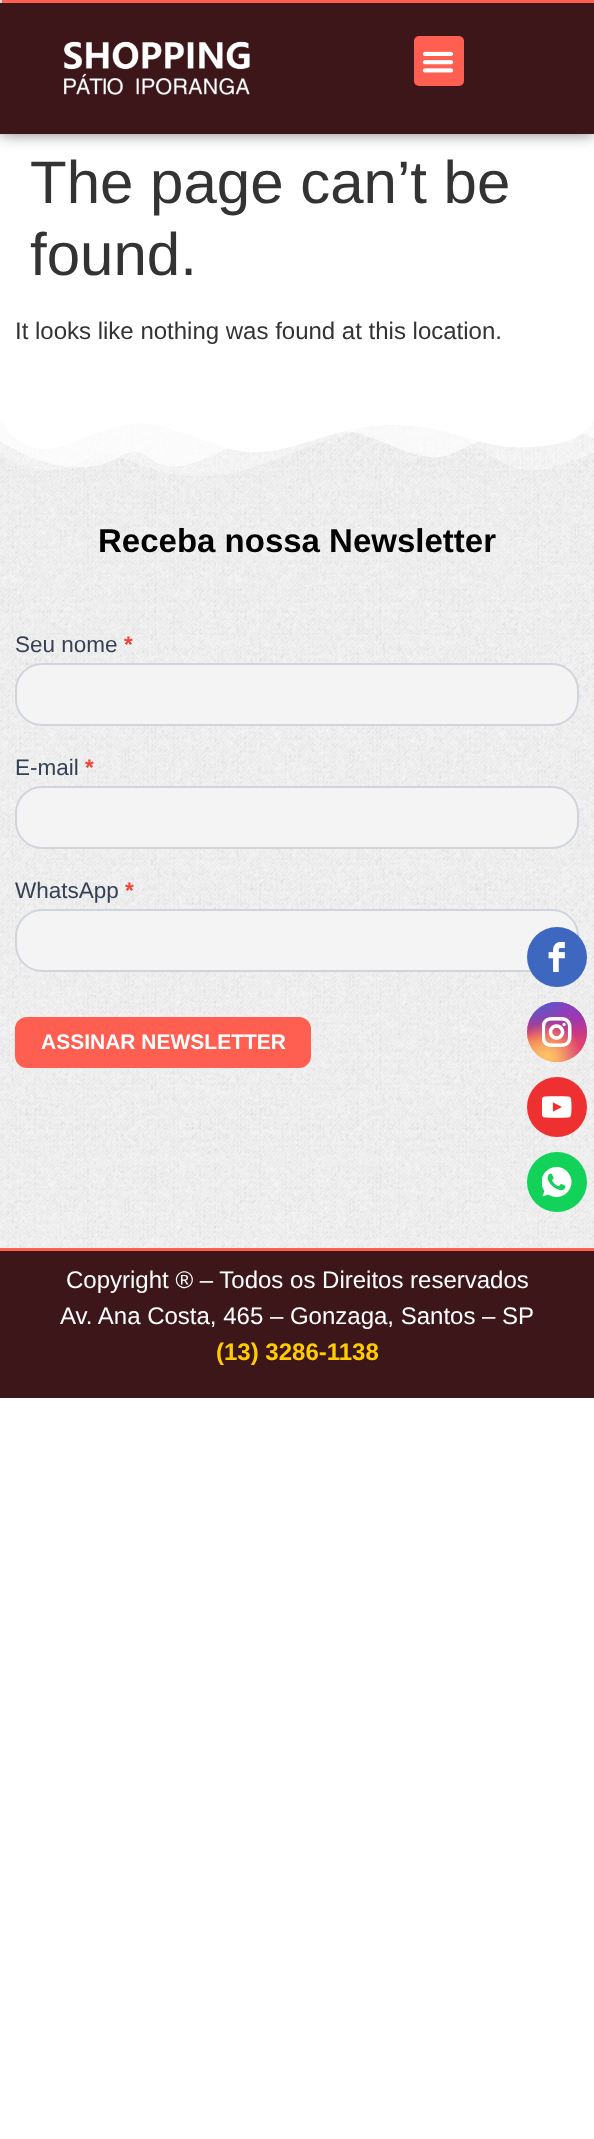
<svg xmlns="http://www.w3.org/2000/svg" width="594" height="2139">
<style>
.a{font:60px Liberation Sans;fill:#333}
.b{font:24px Liberation Sans;fill:#333}
.c{font:bold 33px Liberation Sans;fill:#020202}
.d{font:22.5px Liberation Sans;fill:#344054}
.e{font:bold 22.5px Liberation Sans;fill:#f04438}
.f{font:bold 21px Liberation Sans;fill:#fff}
.g{font:24px Liberation Sans;fill:#fff}
.h{font:bold 24px Liberation Sans;fill:#fc0}
</style>
<defs>
<linearGradient id="g1" gradientUnits="userSpaceOnUse" x1="557" y1="1002" x2="557" y2="1062"><stop offset="0" stop-color="#6559ca"/><stop offset="0.3" stop-color="#bc318f"/><stop offset="0.5" stop-color="#e33f5f"/><stop offset="0.7" stop-color="#f77638"/><stop offset="1" stop-color="#fec66d"/></linearGradient>
<radialGradient id="g2" gradientUnits="userSpaceOnUse" cx="587" cy="1062" r="85"><stop offset="0" stop-color="#d9317a"/><stop offset="1" stop-color="#d9317a" stop-opacity="0"/></radialGradient>
<radialGradient id="g3" gradientUnits="userSpaceOnUse" cx="0" cy="0" r="1" gradientTransform="matrix(51 0 0 102 563 990)"><stop offset="0" stop-color="#893dc2"/><stop offset="0.5" stop-color="#893dc2" stop-opacity="0"/></radialGradient>
<radialGradient id="g4" gradientUnits="userSpaceOnUse" cx="587" cy="1002" r="85"><stop offset="0" stop-color="#893dc2"/><stop offset="0.5" stop-color="#893dc2" stop-opacity="0"/></radialGradient>
<radialGradient id="g5" gradientUnits="userSpaceOnUse" cx="0" cy="0" r="1" gradientTransform="matrix(68 0 0 127 539 972)"><stop offset="0" stop-color="#5258cf"/><stop offset="0.5" stop-color="#5258cf" stop-opacity="0"/></radialGradient>
<radialGradient id="g6" gradientUnits="userSpaceOnUse" cx="0" cy="0" r="1" gradientTransform="matrix(85 0 0 106 527 987)"><stop offset="0" stop-color="#5258cf"/><stop offset="0.5" stop-color="#5258cf" stop-opacity="0"/></radialGradient>
<radialGradient id="g7" gradientUnits="userSpaceOnUse" cx="527" cy="1086" r="103"><stop offset="0" stop-color="#fec564"/><stop offset="0.5" stop-color="#fec564" stop-opacity="0"/></radialGradient>
<radialGradient id="g8" gradientUnits="userSpaceOnUse" cx="548" cy="1056" r="67"><stop offset="0" stop-color="#fec564"/><stop offset="0.5" stop-color="#fec564" stop-opacity="0"/></radialGradient>
</defs>
<rect width="100%" height="100%" fill="#fff"/>
<rect fill="#00000080" filter="blur(7.5px)" width="594" height="134" rx="3"/>
<path fill="#3c1618" d="M3 3h591v131h-594v-131z"/>
<path fill="#fe5f50" d="M2 0h592v3H2z"/>
<image href="1.png" x="64" y="41" width="186" height="54"/>
<rect fill="#fe5f50" x="414" y="36" width="50" height="50" rx="5"/>
<image href="2.png" x="422" y="51" width="32" height="22"/>
<image href="3.png" x="0" y="419" width="594" height="829"/>
<image href="4.png" x="0" y="418" width="594" height="58"/>
<rect fill="#f4f4f4" stroke="#d0d5dd" stroke-width="2" x="16" y="664" width="562" height="61" rx="26"/>
<rect fill="#f4f4f4" stroke="#d0d5dd" stroke-width="2" x="16" y="787" width="562" height="61" rx="26"/>
<rect fill="#f4f4f4" stroke="#d0d5dd" stroke-width="2" x="16" y="910" width="562" height="61" rx="26"/>
<rect fill="#eee" filter="blur(1px)" x="15" y="1019" width="296" height="51" rx="12"/>
<rect fill="#fe5f50" stroke="#fe5f50" stroke-width="2" x="16" y="1018" width="294" height="49" rx="11"/>
<circle fill="#3e68c0" cx="557" cy="957" r="30"/>
<image href="5.png" x="548" y="942" width="17" height="30"/>
<circle fill="url(#g1)" cx="557" cy="1032" r="30"/>
<circle fill="url(#g2)" cx="557" cy="1032" r="30"/>
<circle fill="url(#g3)" cx="557" cy="1032" r="30"/>
<circle fill="url(#g4)" cx="557" cy="1032" r="30"/>
<circle fill="url(#g5)" cx="557" cy="1032" r="30"/>
<circle fill="url(#g6)" cx="557" cy="1032" r="30"/>
<circle fill="url(#g7)" cx="557" cy="1032" r="30"/>
<circle fill="url(#g8)" cx="557" cy="1032" r="30"/>
<image href="6.png" x="542" y="1017" width="30" height="30"/>
<circle fill="#ee3130" cx="557" cy="1107" r="30"/>
<image href="7.png" x="542" y="1096" width="30" height="22"/>
<circle fill="#13d25a" cx="557" cy="1182" r="30"/>
<image href="8.png" x="542" y="1167" width="30" height="30"/>
<path fill="#3c1618" d="M0 1251h594v147H0z"/>
<path fill="#fe5f50" d="M0 1248h594v3H0z"/>
<text class="a" x="30" y="203">The page can’t be</text>
<text class="a" x="30" y="275">found.</text>
<text class="b" x="15" y="339">It looks like nothing was found at this location.</text>
<text class="c" x="98" y="552">Receba nossa Newsletter</text>
<text class="d" x="15" y="652">Seu nome</text>
<text class="e" x="124" y="652">*</text>
<text class="d" x="15" y="775">E-mail</text>
<text class="e" x="85" y="775">*</text>
<text class="d" x="15" y="898">WhatsApp</text>
<text class="e" x="125" y="898">*</text>
<text class="f" x="41" y="1049">ASSINAR NEWSLETTER</text>
<text class="g" x="66" y="1288">Copyright ® – Todos os Direitos reservados</text>
<text class="g" x="60" y="1324">Av. Ana Costa, 465 – Gonzaga, Santos – SP</text>
<text class="h" x="216" y="1360">(13) 3286-1138</text>
</svg>
